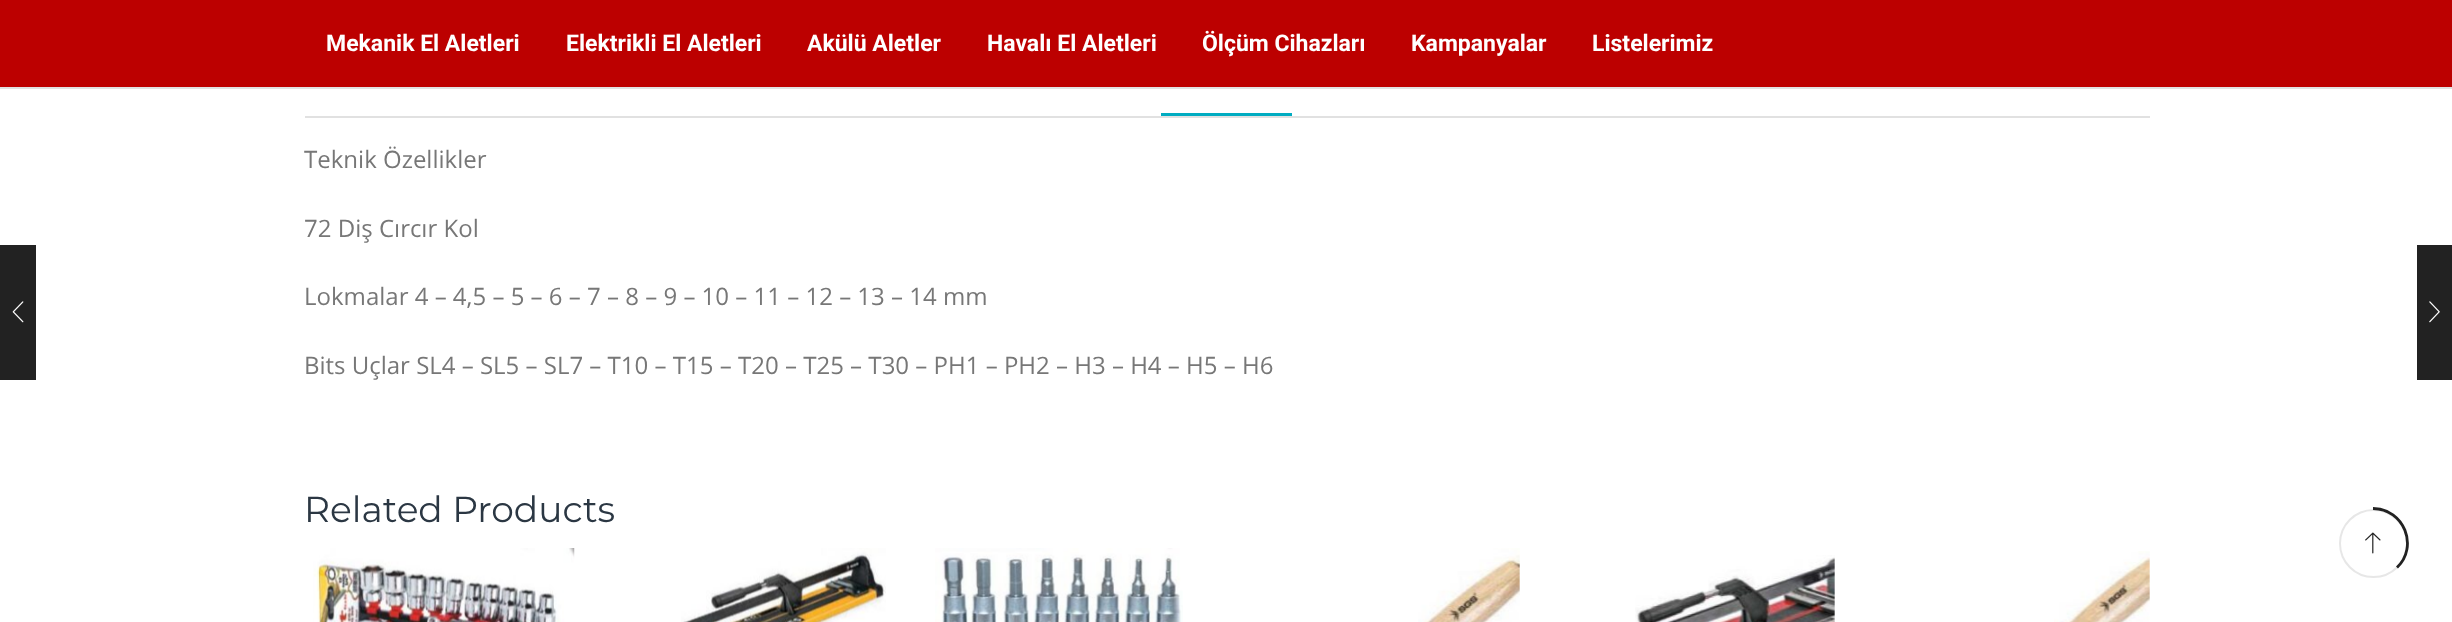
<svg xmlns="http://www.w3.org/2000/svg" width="2452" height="622">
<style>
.a{font:bold 23px Roboto;fill:#fff}
.b{font:24px Open Sans;fill:#777}
.c{font:36px Montserrat;fill:#2b3743}
</style>
<rect width="100%" height="100%" fill="#fff"/>
<path fill="#bc0000" d="M0 0h2452v87H0z"/>
<path fill="#e1e1e1" d="M0 87h2452v2H0z"/>
<path fill="#e1e1e1" d="M305 116h1845v2H305z"/>
<path fill="#00acc1" d="M1161 113h131v3H1161z"/>
<path fill="#222" d="M0 245h36v135H0z"/>
<image href="1.png" x="12" y="301" width="12" height="22"/>
<path fill="#222" d="M2417 245h35v135H2417z"/>
<image href="2.png" x="2429" y="301" width="11" height="22"/>
<image href="3.png" x="313" y="548" width="262" height="74"/>
<image href="4.png" x="681" y="548" width="205" height="74"/>
<image href="5.png" x="935" y="548" width="248" height="74"/>
<image href="6.png" x="1418" y="548" width="102" height="74"/>
<image href="7.png" x="1635" y="555" width="200" height="67"/>
<image href="8.png" x="2054" y="551" width="96" height="71"/>
<circle fill="none" stroke="#e7e7e7" stroke-width="2" cx="2373.5" cy="543.5" r="33.5"/>
<path fill="none" stroke="#222" stroke-width="2.8" d="M2373 508.5c31 0 46 38 24 59"/>
<image href="9.png" x="2365" y="532" width="16" height="22"/>
<text class="a" x="326" y="51">Mekanik El Aletleri</text>
<text class="a" x="566" y="51">Elektrikli El Aletleri</text>
<text class="a" x="807" y="51">Akülü Aletler</text>
<text class="a" x="987" y="51">Havalı El Aletleri</text>
<text class="a" x="1202" y="51">Ölçüm Cihazları</text>
<text class="a" x="1411" y="51">Kampanyalar</text>
<text class="a" x="1592" y="51">Listelerimiz</text>
<text class="b" x="304" y="168">Teknik Özellikler</text>
<text class="b" x="304" y="237">72 Diş Cırcır Kol</text>
<text class="b" x="304" y="305">Lokmalar 4 – 4,5 – 5 – 6 – 7 – 8 – 9 – 10 – 11 – 12 – 13 – 14 mm</text>
<text class="b" x="304" y="374">Bits Uçlar SL4 – SL5 – SL7 – T10 – T15 – T20 – T25 – T30 – PH1 – PH2 – H3 – H4 – H5 – H6</text>
<text class="c" x="304" y="522">Related Products</text>
</svg>
